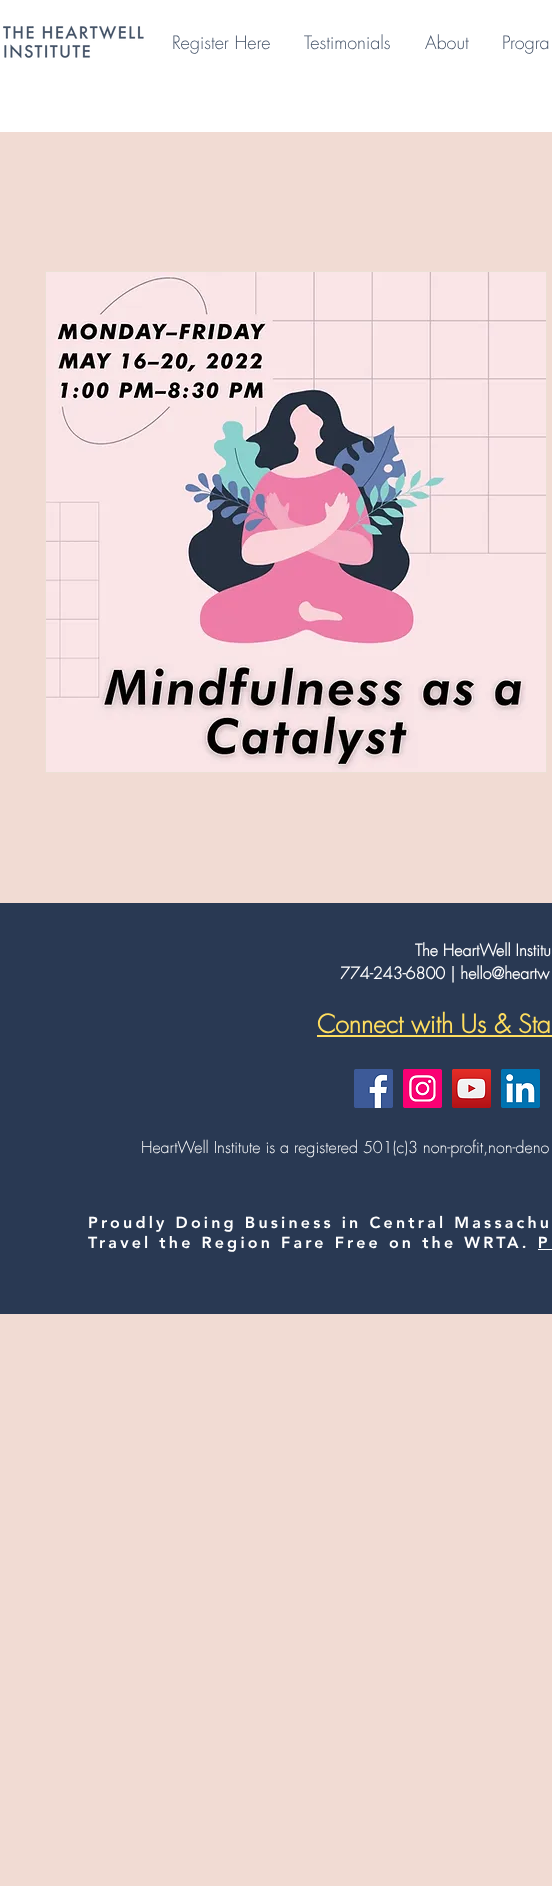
<svg xmlns="http://www.w3.org/2000/svg" width="552" height="1886">
<style>
.a{font:300 18px futura;fill:#445267}
.b{font:bold 16px futura;fill:#fff}
.c{font:bold 25px futura;fill:#ffde5f}
.d{font:300 16px futura;fill:#fff}
.e{font:900 16px 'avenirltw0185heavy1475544';letter-spacing:3.2px;fill:#fff}
</style>
<rect width="100%" height="100%" fill="#f1dbd3"/>
<path fill="#fff" d="M0 0h552v132H0z"/>
<image href="1.png" x="3" y="25" width="141" height="34"/>
<path fill="none" stroke="#ebe0d5" d="M45.5 271.5h501v501H45.5z"/>
<image href="2.png" x="46" y="272" width="500" height="500"/>
<path fill="#293953" d="M0 903h552v411H0z"/>
<path fill="#ffde5f" d="M317 1035h235v2H317z"/>
<image href="3.png" x="354" y="1069" width="39" height="39"/>
<image href="4.png" x="403" y="1069" width="39" height="39"/>
<image href="5.png" x="452" y="1069" width="39" height="39"/>
<image href="6.png" x="501" y="1069" width="39" height="39"/>
<path fill="#fff" d="M538 1249h14v1H538z"/>
<text class="a" x="172" y="49">Register Here</text>
<text class="a" x="304" y="49">Testimonials</text>
<text class="a" x="425" y="49">About</text>
<text class="a" x="502" y="49">Progra</text>
<text class="b" x="415" y="956">The HeartWell Institu</text>
<text class="b" x="340" y="979">774-243-6800 | hello@heartw</text>
<text class="c" x="317" y="1033">Connect with Us &amp; Sta</text>
<text class="d" x="141" y="1153">HeartWell Institute is a registered 501(c)3 non-profit,non-deno</text>
<text class="e" x="88" y="1228">Proudly Doing Business in Central Massachu</text>
<text class="e" x="88" y="1248">Travel the Region Fare Free on the WRTA. P</text>
</svg>
